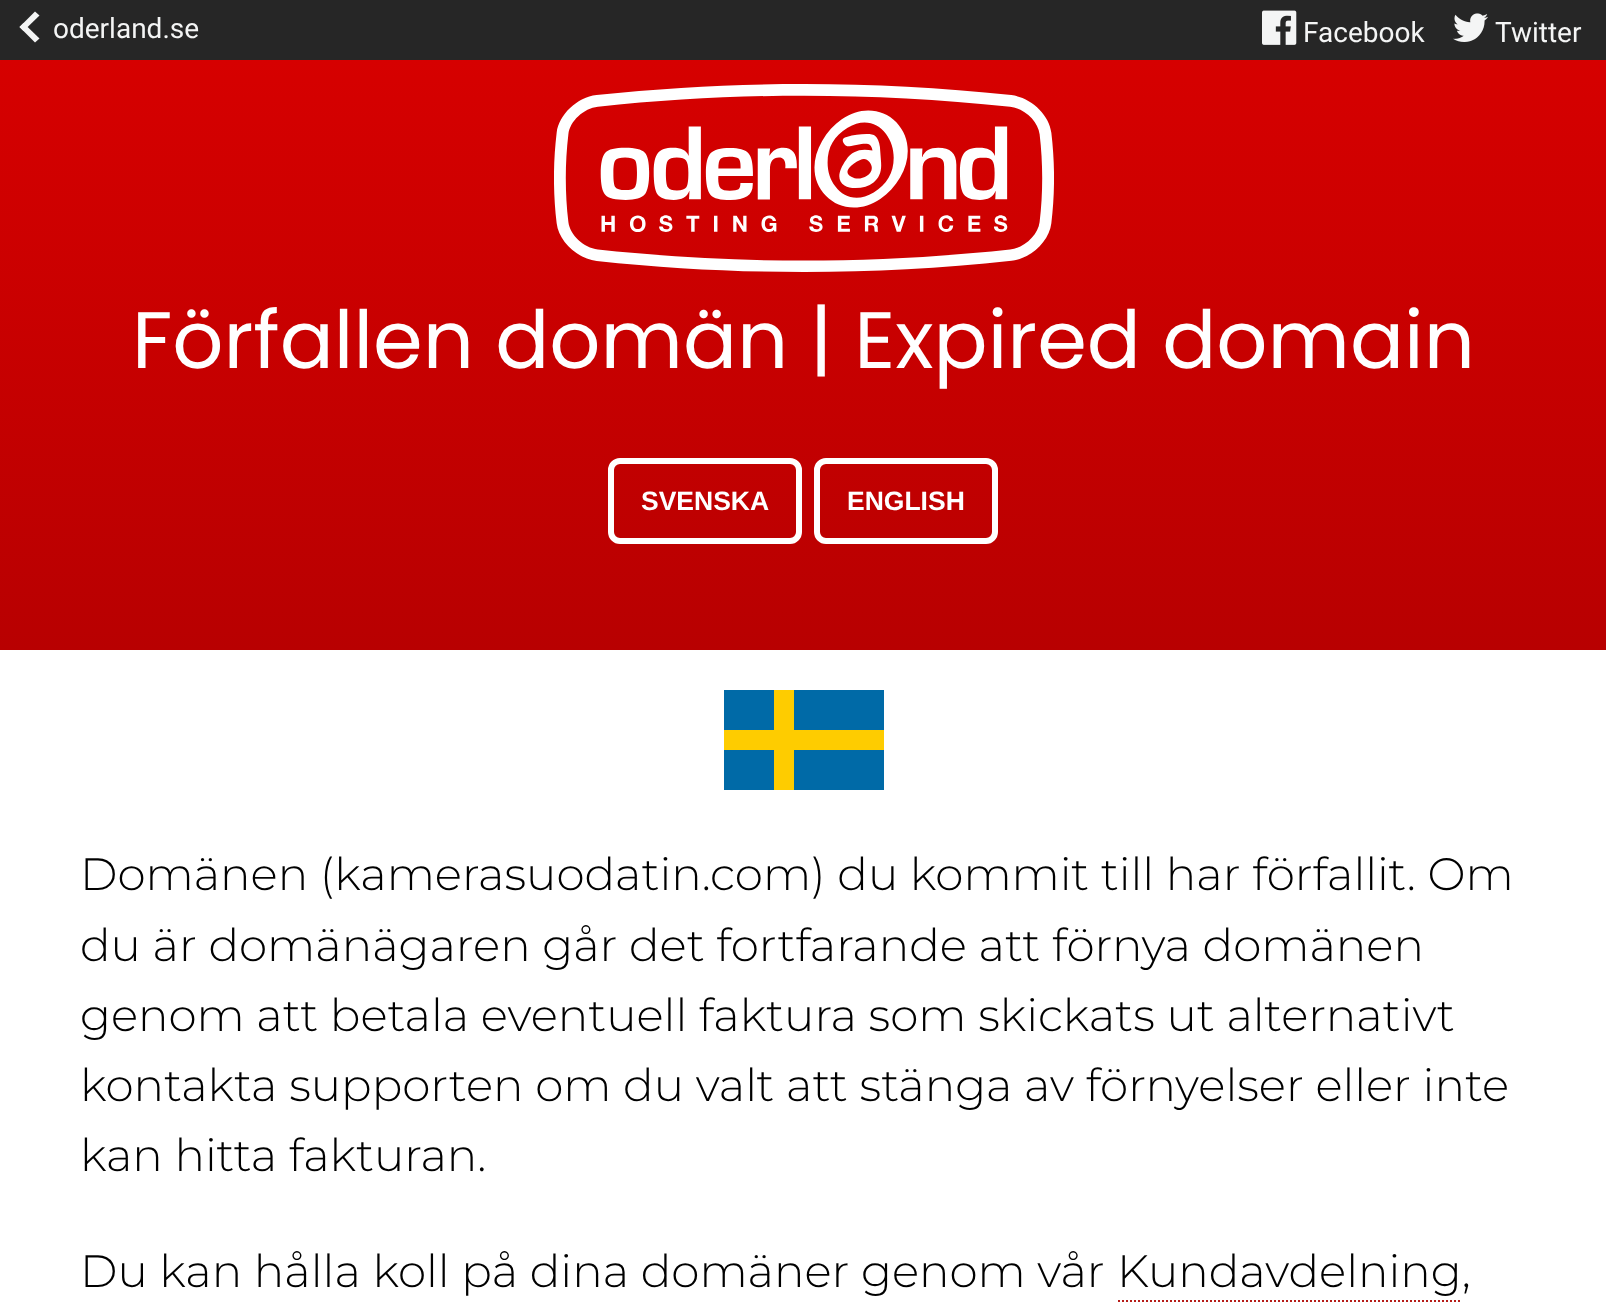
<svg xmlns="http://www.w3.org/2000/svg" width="1606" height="1305">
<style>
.a{font:28px Roboto;fill:#f4f5f5}
.b{font:80px Poppins;fill:#fff}
.c{font:bold 26.5px Liberation Sans;fill:#fff}
.d{font:100 45.3px Montserrat;fill:#000}
</style>
<defs>
<linearGradient id="g1" gradientUnits="userSpaceOnUse" x1="803" y1="650" x2="803" y2="60"><stop offset="0" stop-color="#b80001"/><stop offset="1" stop-color="#d60000"/></linearGradient>
</defs>
<rect width="100%" height="100%" fill="#fff"/>
<path fill="#262626" d="M0 0h1606v60H0z"/>
<path fill="#f4f5f5" d="M39.5 38.5l-4.5 4l-15.5-15.5l4-4z"/>
<path fill="#f4f5f5" d="M39.5 15.5l-16 15.5l-4-4l15.5-15.5z"/>
<image href="1.png" x="1262" y="10" width="35" height="35"/>
<image href="2.png" x="1453" y="13" width="35" height="29"/>
<path fill="url(#g1)" d="M0 60h1606v590H0z"/>
<image href="3.png" x="554" y="84" width="500" height="188"/>
<rect fill="none" stroke="#fff" stroke-width="6" x="611" y="461" width="188" height="80" rx="9"/>
<rect fill="none" stroke="#fff" stroke-width="6" x="817" y="461" width="178" height="80" rx="9"/>
<path fill="#006aa7" d="M724 690h160v100H724z"/>
<path fill="#fecc00" d="M774 690h20v100H774z"/>
<path fill="#fecc00" d="M724 730h160v20H724z"/>
<path fill="none" stroke="#b61c18" stroke-width="2" stroke-dasharray="2 2" d="M1118 1301h344"/>
<text class="a" x="53" y="38">oderland.se</text>
<text class="a" x="1303" y="42">Facebook</text>
<text class="a" x="1495" y="42">Twitter</text>
<text class="b" x="132" y="368">Förfallen domän | Expired domain</text>
<text class="c" x="641" y="510">SVENSKA</text>
<text class="c" x="847" y="510">ENGLISH</text>
<text class="d" x="80" y="890">Domänen (kamerasuodatin.com) du kommit till har förfallit. Om</text>
<text class="d" x="80" y="961">du är domänägaren går det fortfarande att förnya domänen</text>
<text class="d" x="80" y="1031">genom att betala eventuell faktura som skickats ut alternativt</text>
<text class="d" x="80" y="1101">kontakta supporten om du valt att stänga av förnyelser eller inte</text>
<text class="d" x="80" y="1171">kan hitta fakturan.</text>
<text class="d" x="80" y="1287">Du kan hålla koll på dina domäner genom vår</text>
<text class="d" x="1117" y="1287">Kundavdelning,</text>
</svg>
